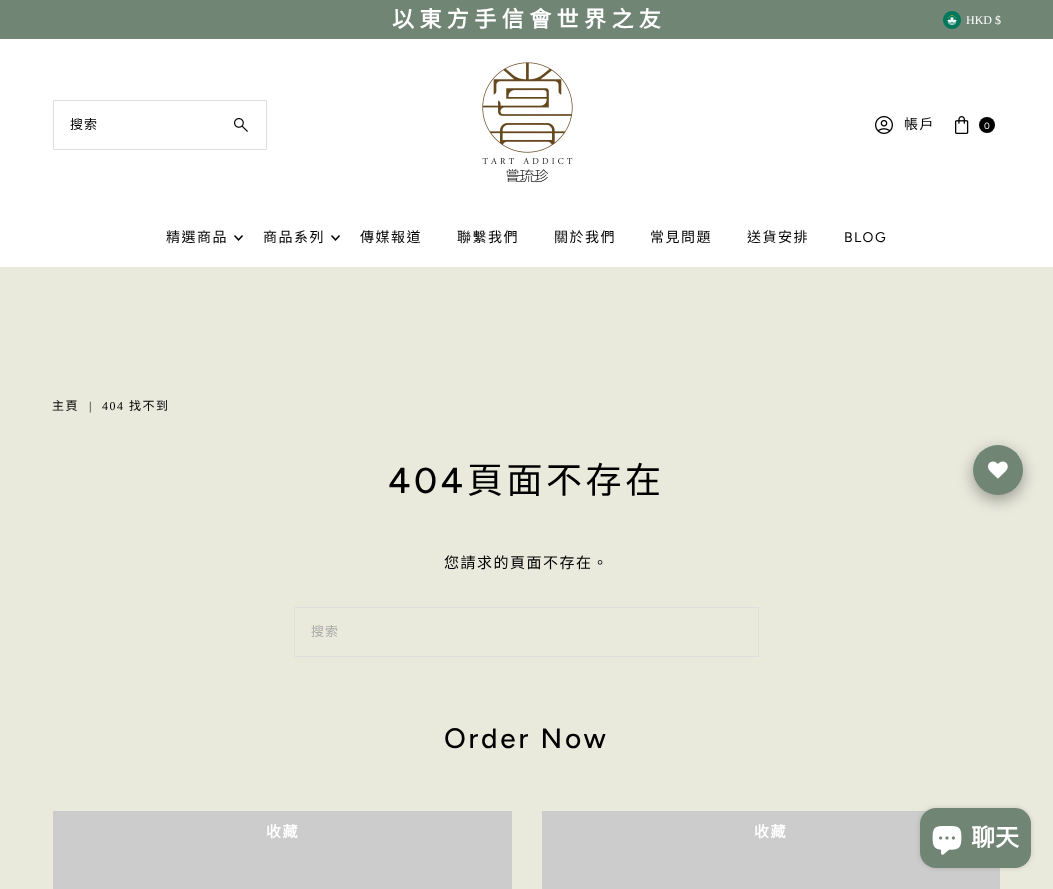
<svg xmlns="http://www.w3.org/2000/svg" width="1053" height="889">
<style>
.a{font:bold 22px Noto Sans CJK TC;fill:#fff}
.b{font:12px Liberation Serif;fill:#fff}
.c{font:13px Noto Sans CJK TC;letter-spacing:1px;fill:#000}
.d{font:14px Noto Sans CJK TC;letter-spacing:1.5px;fill:#000}
.e{font:9px Figtree;fill:#fff}
.f{font:14px Figtree;letter-spacing:1.5px;fill:#000}
.g{font:12px Noto Sans CJK TC;letter-spacing:1.5px;fill:#000}
.h{font:12px Liberation Serif;letter-spacing:1.5px;fill:#000}
.i{font:500 36px Figtree;letter-spacing:3.5px;fill:#000}
.j{font:36px Noto Sans CJK TC;letter-spacing:3.5px;fill:#000}
.k{font:15px Noto Sans CJK TC;letter-spacing:1.5px;fill:#000}
.l{font:13px Noto Sans CJK TC;letter-spacing:1px;fill:#aaa}
.m{font:500 28px Figtree;letter-spacing:2.75px;fill:#000}
.n{font:bold 15px Noto Sans CJK TC;letter-spacing:1.5px;fill:#fff}
.o{font:bold 24px Noto Sans CJK TC;fill:#fff}
</style>
<rect width="100%" height="100%" fill="#e9eadc"/>
<path fill="#708573" d="M0 0h1053v39H0z"/>
<image href="1.png" x="943" y="11" width="18" height="18"/>
<path fill="#fff" d="M0 39h1053v228H0z"/>
<path fill="none" stroke="#dedede" d="M53.5 100.5h213v49H53.5z"/>
<image href="2.png" x="234" y="118" width="14" height="14"/>
<image href="3.png" x="482" y="62" width="91" height="120"/>
<image href="4.png" x="875" y="116" width="18" height="18"/>
<image href="5.png" x="955" y="116" width="14" height="18"/>
<circle fill="#000" cx="987" cy="125" r="8"/>
<image href="6.png" x="234" y="235" width="9" height="6"/>
<image href="6.png" x="331" y="235" width="9" height="6"/>
<path fill="none" stroke="#dedede" d="M294.5 607.5h464v49H294.5z"/>
<path fill="#ccc" d="M53 811h459v78H53z"/>
<path fill="#ccc" d="M542 811h458v78H542z"/>
<rect fill="#00000059" filter="blur(7.5px)" x="973" y="450" width="50" height="50" rx="25"/>
<circle fill="#708573" cx="998" cy="470" r="25"/>
<image href="7.png" x="988" y="461" width="20" height="18"/>
<rect fill="#00000026" filter="blur(2.5px)" x="920" y="808" width="111" height="60" rx="16"/>
<rect fill="#708573" x="920" y="808" width="111" height="60" rx="16"/>
<image href="8.png" x="932" y="826" width="30" height="29"/>
<text class="a" x="392" y="27" word-spacing="0.5">以 東 方 手 信 會 世 界 之 友</text>
<text class="b" x="966" y="24">HKD $</text>
<text class="c" x="70" y="129">搜索</text>
<text class="d" x="904" y="129">帳戶</text>
<text class="e" x="984" y="129">0</text>
<text class="d" x="166" y="242">精選商品</text>
<text class="d" x="263" y="242">商品系列</text>
<text class="d" x="360" y="242">傳媒報道</text>
<text class="d" x="457" y="242">聯繫我們</text>
<text class="d" x="554" y="242">關於我們</text>
<text class="d" x="650" y="242">常見問題</text>
<text class="d" x="747" y="242">送貨安排</text>
<text class="f" x="844" y="242">BLOG</text>
<text class="g" x="52" y="410">主頁</text>
<text class="h" x="89" y="410">|</text>
<text class="h" x="102" y="410">404</text>
<text class="g" x="129" y="410">找不到</text>
<text class="i" x="388" y="493">404</text>
<text class="j" x="467" y="493">頁面不存在</text>
<text class="k" x="444" y="568">您請求的頁面不存在。</text>
<text class="l" x="311" y="636">搜索</text>
<text class="m" x="444" y="748">Order Now</text>
<text class="n" x="266" y="837">收藏</text>
<text class="n" x="754" y="837">收藏</text>
<text class="o" x="971" y="846">聊天</text>
</svg>
